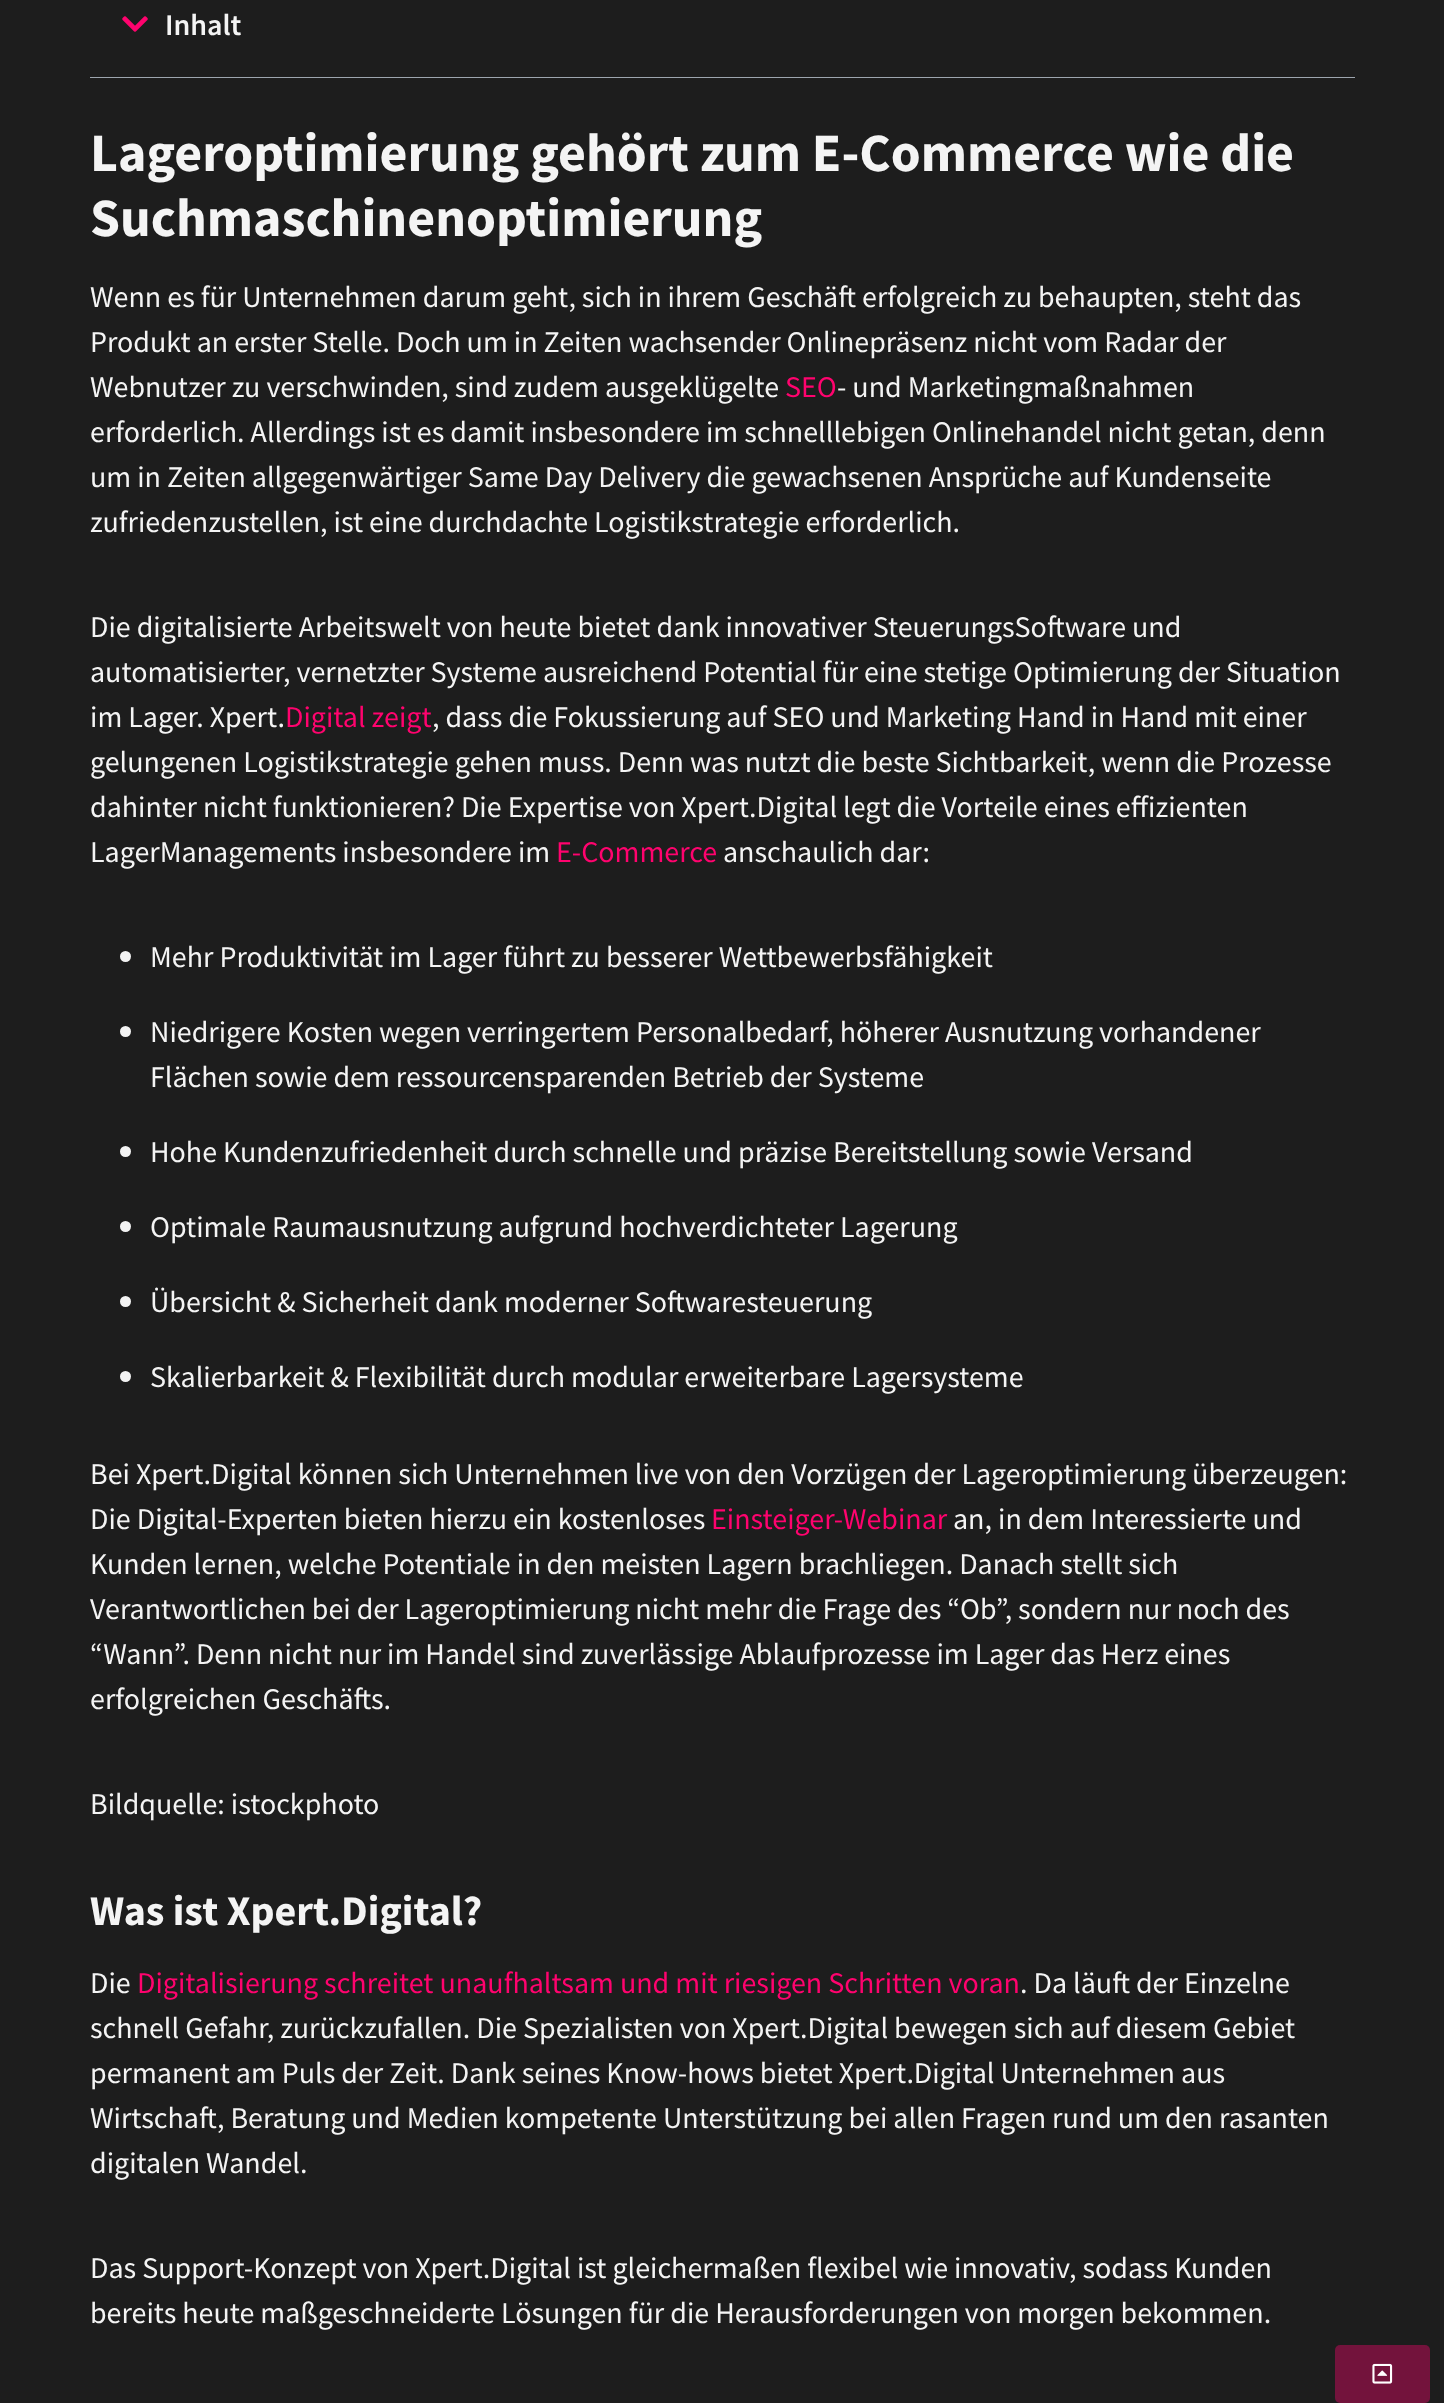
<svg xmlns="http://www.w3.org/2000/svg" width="1444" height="2403">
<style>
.a{font:600 30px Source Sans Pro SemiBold;fill:#f4f4f4}
.b{font:bold 54px Source Sans Pro;fill:#f4f4f4}
.c{font:30px Source Sans Pro;fill:#f4f4f4}
.d{font:30px Source Sans Pro;fill:#ff036e}
.e{font:bold 42px Source Sans Pro;fill:#f4f4f4}
</style>
<rect width="100%" height="100%" fill="#1d1d1d"/>
<path fill="#9da5ae" d="M90 77h1265v1H90z"/>
<image href="1.png" x="122" y="16" width="26" height="16"/>
<circle fill="#f4f4f4" cx="125.5" cy="956.5" r="5.5"/>
<circle fill="#f4f4f4" cx="125.5" cy="1031.5" r="5.5"/>
<circle fill="#f4f4f4" cx="125.5" cy="1151.5" r="5.5"/>
<circle fill="#f4f4f4" cx="125.5" cy="1226.5" r="5.5"/>
<circle fill="#f4f4f4" cx="125.5" cy="1301.5" r="5.5"/>
<circle fill="#f4f4f4" cx="125.5" cy="1376.5" r="5.5"/>
<rect fill="#73133c" x="1335" y="2345" width="95" height="58" rx="5"/>
<image href="2.png" x="1372" y="2363" width="21" height="21"/>
<text class="a" x="165" y="35">Inhalt</text>
<text class="b" x="90" y="171">Lageroptimierung gehört zum E-Commerce wie die</text>
<text class="b" x="90" y="236">Suchmaschinenoptimierung</text>
<text class="c" x="90" y="307">Wenn es für Unternehmen darum geht, sich in ihrem Geschäft erfolgreich zu behaupten, steht das</text>
<text class="c" x="90" y="352">Produkt an erster Stelle. Doch um in Zeiten wachsender Onlinepräsenz nicht vom Radar der</text>
<text class="c" x="90" y="397">Webnutzer zu verschwinden, sind zudem ausgeklügelte</text>
<text class="d" x="785" y="397">SEO</text>
<text class="c" x="837" y="397">- und Marketingmaßnahmen</text>
<text class="c" x="90" y="442">erforderlich. Allerdings ist es damit insbesondere im schnelllebigen Onlinehandel nicht getan, denn</text>
<text class="c" x="90" y="487">um in Zeiten allgegenwärtiger Same Day Delivery die gewachsenen Ansprüche auf Kundenseite</text>
<text class="c" x="90" y="532">zufriedenzustellen, ist eine durchdachte Logistikstrategie erforderlich.</text>
<text class="c" x="90" y="637">Die digitalisierte Arbeitswelt von heute bietet dank innovativer SteuerungsSoftware und</text>
<text class="c" x="90" y="682">automatisierter, vernetzter Systeme ausreichend Potential für eine stetige Optimierung der Situation</text>
<text class="c" x="90" y="727">im Lager. Xpert.</text>
<text class="d" x="285" y="727">Digital zeigt</text>
<text class="c" x="432" y="727">, dass die Fokussierung auf SEO und Marketing Hand in Hand mit einer</text>
<text class="c" x="90" y="772">gelungenen Logistikstrategie gehen muss. Denn was nutzt die beste Sichtbarkeit, wenn die Prozesse</text>
<text class="c" x="90" y="817">dahinter nicht funktionieren? Die Expertise von Xpert.Digital legt die Vorteile eines effizienten</text>
<text class="c" x="90" y="862">LagerManagements insbesondere im</text>
<text class="d" x="556" y="862">E-Commerce</text>
<text class="c" x="723" y="862">anschaulich dar:</text>
<text class="c" x="150" y="967">Mehr Produktivität im Lager führt zu besserer Wettbewerbsfähigkeit</text>
<text class="c" x="150" y="1042">Niedrigere Kosten wegen verringertem Personalbedarf, höherer Ausnutzung vorhandener</text>
<text class="c" x="150" y="1087">Flächen sowie dem ressourcensparenden Betrieb der Systeme</text>
<text class="c" x="150" y="1162">Hohe Kundenzufriedenheit durch schnelle und präzise Bereitstellung sowie Versand</text>
<text class="c" x="150" y="1237">Optimale Raumausnutzung aufgrund hochverdichteter Lagerung</text>
<text class="c" x="150" y="1312">Übersicht &amp; Sicherheit dank moderner Softwaresteuerung</text>
<text class="c" x="150" y="1387">Skalierbarkeit &amp; Flexibilität durch modular erweiterbare Lagersysteme</text>
<text class="c" x="90" y="1484">Bei Xpert.Digital können sich Unternehmen live von den Vorzügen der Lageroptimierung überzeugen:</text>
<text class="c" x="90" y="1529">Die Digital-Experten bieten hierzu ein kostenloses</text>
<text class="d" x="711" y="1529">Einsteiger-Webinar</text>
<text class="c" x="953" y="1529">an, in dem Interessierte und</text>
<text class="c" x="90" y="1574">Kunden lernen, welche Potentiale in den meisten Lagern brachliegen. Danach stellt sich</text>
<text class="c" x="90" y="1619">Verantwortlichen bei der Lageroptimierung nicht mehr die Frage des “Ob”, sondern nur noch des</text>
<text class="c" x="90" y="1664">“Wann”. Denn nicht nur im Handel sind zuverlässige Ablaufprozesse im Lager das Herz eines</text>
<text class="c" x="90" y="1709">erfolgreichen Geschäfts.</text>
<text class="c" x="90" y="1814">Bildquelle: istockphoto</text>
<text class="e" x="90" y="1925">Was ist Xpert.Digital?</text>
<text class="c" x="90" y="1993">Die</text>
<text class="d" x="137" y="1993">Digitalisierung schreitet unaufhaltsam und mit riesigen Schritten voran</text>
<text class="c" x="1020" y="1993">. Da läuft der Einzelne</text>
<text class="c" x="90" y="2038">schnell Gefahr, zurückzufallen. Die Spezialisten von Xpert.Digital bewegen sich auf diesem Gebiet</text>
<text class="c" x="90" y="2083">permanent am Puls der Zeit. Dank seines Know-hows bietet Xpert.Digital Unternehmen aus</text>
<text class="c" x="90" y="2128">Wirtschaft, Beratung und Medien kompetente Unterstützung bei allen Fragen rund um den rasanten</text>
<text class="c" x="90" y="2173">digitalen Wandel.</text>
<text class="c" x="90" y="2278">Das Support-Konzept von Xpert.Digital ist gleichermaßen flexibel wie innovativ, sodass Kunden</text>
<text class="c" x="90" y="2323">bereits heute maßgeschneiderte Lösungen für die Herausforderungen von morgen bekommen.</text>
</svg>
